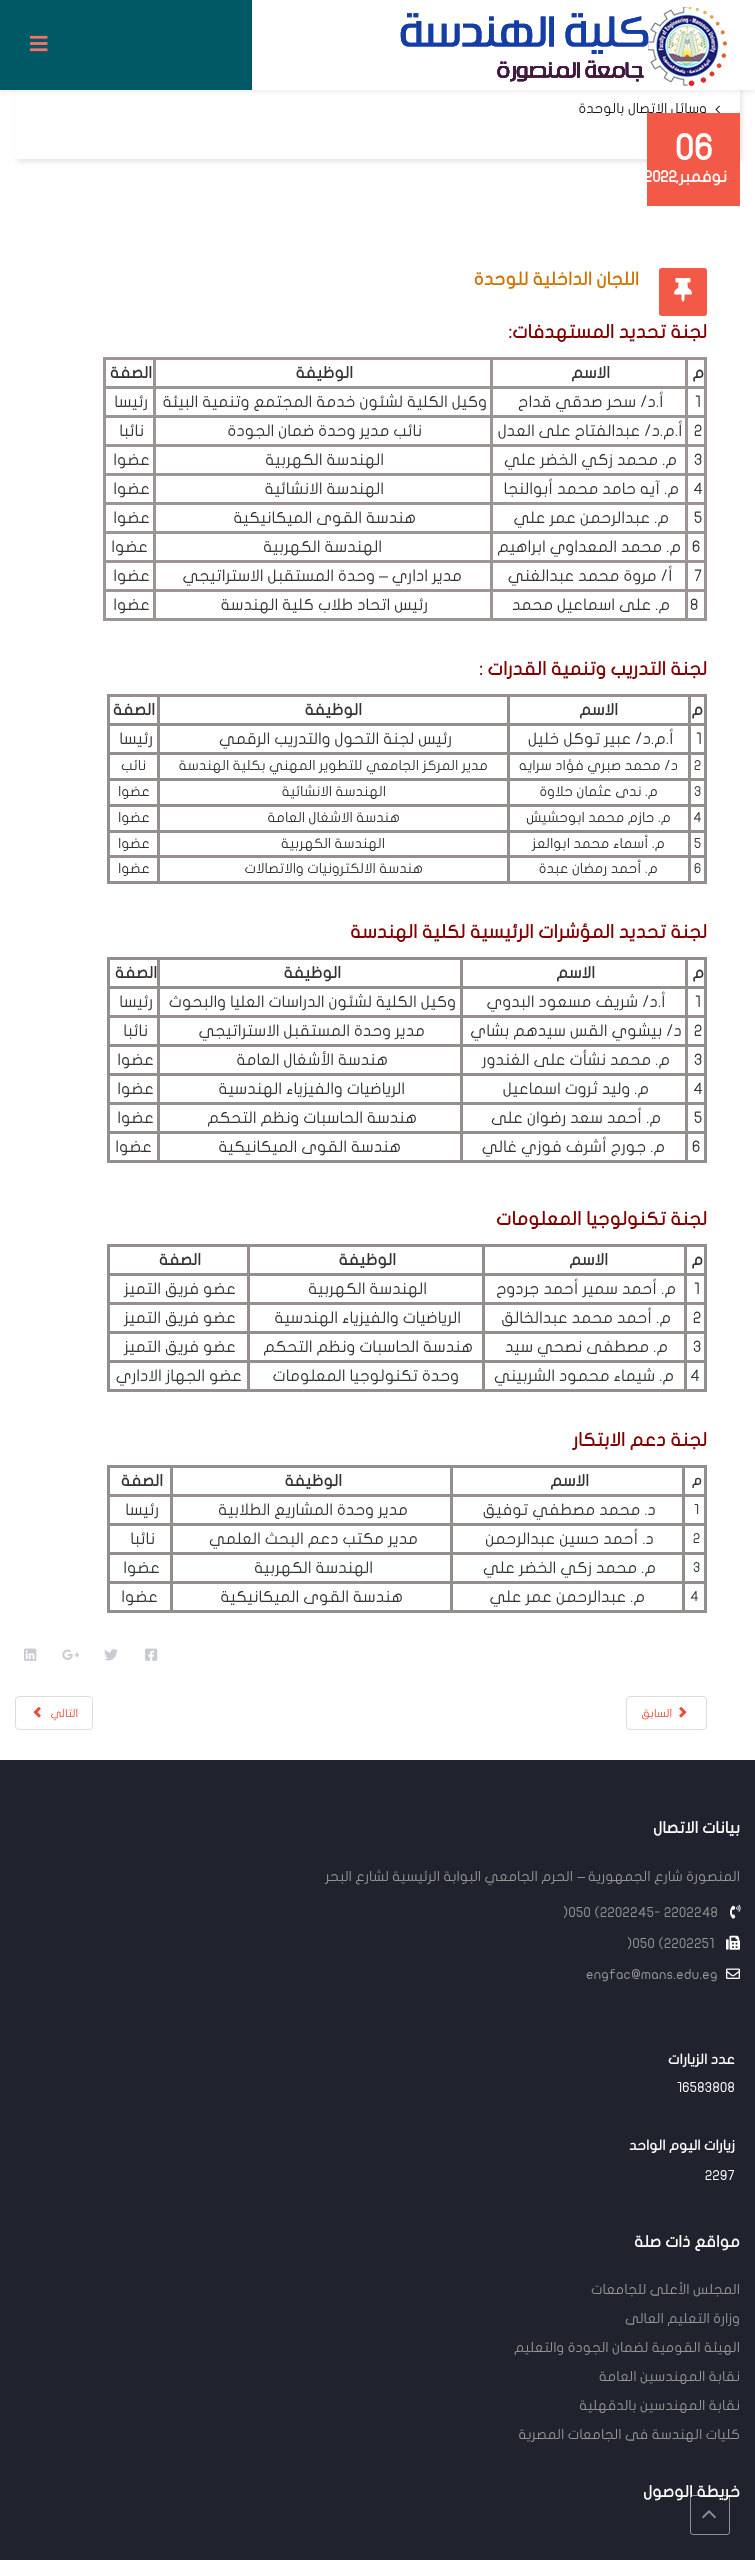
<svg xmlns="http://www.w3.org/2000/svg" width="755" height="2560">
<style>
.a{font:14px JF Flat;direction:rtl;fill:#1a1a1a}
.b{font:bold 36px JF Flat;letter-spacing:-0.5px;fill:#fff}
.c{font:bold 16px JF Flat;letter-spacing:-0.5px;direction:rtl;fill:#fff}
.d{font:bold 16px JF Flat;letter-spacing:-0.5px;fill:#fff}
.e{font:bold 18px JF Flat;direction:rtl;fill:#cc7200}
.f{font:bold 18.7px JF Flat;direction:rtl;fill:#800000}
.g{font:bold 16px JF Flat;direction:rtl;fill:#333}
.h{font:16px JF Flat;fill:#333}
.i{font:16px JF Flat;direction:rtl;fill:#333}
.j{font:16px Liberation Sans;direction:rtl;fill:#333}
.k{font:14px JF Flat;fill:#333}
.l{font:14px JF Flat;direction:rtl;fill:#333}
.m{font:bold 14px JF Flat;direction:rtl;fill:#333}
.n{font:11px JF Flat;direction:rtl;fill:#f14833}
.o{font:bold 16px JF Flat;direction:rtl;fill:#fff}
.p{font:14px JF Flat;direction:rtl;fill:#959595}
.q{font:14px Liberation Sans;direction:rtl;fill:#959595}
.r{font:14px JF Flat;fill:#959595}
.s{font:bold 14px JF Flat;direction:rtl;fill:#fff}
.t{font:14px JF Flat;fill:#fff}
</style>
<rect width="100%" height="100%" fill="#fff"/>
<rect fill="#0000001a" filter="blur(2.5px)" x="17" y="-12" width="725" height="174" rx="4"/>
<rect fill="#fff" x="15" y="-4" width="725" height="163" rx="4"/>
<path fill="#0000000d" filter="blur(1.5px)" d="M0 3h755v90H0z"/>
<path fill="#005965" d="M0 0h252v90H0z"/>
<path fill="#fff" d="M252 0h503v90H252z"/>
<image href="1.png" x="400" y="7" width="327" height="79"/>
<image href="2.png" x="30" y="35" width="18" height="17"/>
<image href="3.png" x="715" y="105" width="5" height="8"/>
<rect fill="#f25a47" x="659" y="268" width="48" height="48" rx="3"/>
<image href="4.png" x="674" y="278" width="18" height="24"/>
<path fill="#9d9595" d="M685 357h22v3H685z"/>
<path fill="#9d9595" d="M685 386h22v3H685z"/>
<path fill="#9d9595" d="M685 415h22v3H685z"/>
<path fill="#9d9595" d="M685 444h22v3H685z"/>
<path fill="#9d9595" d="M685 473h22v3H685z"/>
<path fill="#9d9595" d="M685 502h22v3H685z"/>
<path fill="#9d9595" d="M685 531h22v3H685z"/>
<path fill="#9d9595" d="M685 560h22v3H685z"/>
<path fill="#9d9595" d="M685 589h22v3H685z"/>
<path fill="#9d9595" d="M704 589h3v32H704z"/>
<path fill="#9d9595" d="M704 560h3v32H704z"/>
<path fill="#9d9595" d="M704 531h3v32H704z"/>
<path fill="#9d9595" d="M704 502h3v32H704z"/>
<path fill="#9d9595" d="M704 473h3v32H704z"/>
<path fill="#9d9595" d="M704 444h3v32H704z"/>
<path fill="#9d9595" d="M704 415h3v32H704z"/>
<path fill="#9d9595" d="M704 386h3v32H704z"/>
<path fill="#9d9595" d="M704 357h3v32H704z"/>
<path fill="#9d9595" d="M685 618h22v3H685z"/>
<path fill="#9d9595" d="M685 589h3v32H685z"/>
<path fill="#9d9595" d="M490 589h198v3H490z"/>
<path fill="#9d9595" d="M685 560h3v32H685z"/>
<path fill="#9d9595" d="M490 560h198v3H490z"/>
<path fill="#9d9595" d="M685 531h3v32H685z"/>
<path fill="#9d9595" d="M490 531h198v3H490z"/>
<path fill="#9d9595" d="M685 502h3v32H685z"/>
<path fill="#9d9595" d="M490 502h198v3H490z"/>
<path fill="#9d9595" d="M685 473h3v32H685z"/>
<path fill="#9d9595" d="M490 473h198v3H490z"/>
<path fill="#9d9595" d="M685 444h3v32H685z"/>
<path fill="#9d9595" d="M490 444h198v3H490z"/>
<path fill="#9d9595" d="M685 415h3v32H685z"/>
<path fill="#9d9595" d="M490 415h198v3H490z"/>
<path fill="#9d9595" d="M685 386h3v32H685z"/>
<path fill="#9d9595" d="M490 386h198v3H490z"/>
<path fill="#9d9595" d="M685 357h3v32H685z"/>
<path fill="#9d9595" d="M490 357h198v3H490z"/>
<path fill="#9d9595" d="M490 618h198v3H490z"/>
<path fill="#9d9595" d="M490 589h3v32H490z"/>
<path fill="#9d9595" d="M153 589h340v3H153z"/>
<path fill="#9d9595" d="M490 560h3v32H490z"/>
<path fill="#9d9595" d="M153 560h340v3H153z"/>
<path fill="#9d9595" d="M490 531h3v32H490z"/>
<path fill="#9d9595" d="M153 531h340v3H153z"/>
<path fill="#9d9595" d="M490 502h3v32H490z"/>
<path fill="#9d9595" d="M153 502h340v3H153z"/>
<path fill="#9d9595" d="M490 473h3v32H490z"/>
<path fill="#9d9595" d="M153 473h340v3H153z"/>
<path fill="#9d9595" d="M490 444h3v32H490z"/>
<path fill="#9d9595" d="M153 444h340v3H153z"/>
<path fill="#9d9595" d="M490 415h3v32H490z"/>
<path fill="#9d9595" d="M153 415h340v3H153z"/>
<path fill="#9d9595" d="M490 386h3v32H490z"/>
<path fill="#9d9595" d="M153 386h340v3H153z"/>
<path fill="#9d9595" d="M490 357h3v32H490z"/>
<path fill="#9d9595" d="M153 357h340v3H153z"/>
<path fill="#9d9595" d="M153 618h340v3H153z"/>
<path fill="#9d9595" d="M153 589h3v32H153z"/>
<path fill="#9d9595" d="M103 589h53v3H103z"/>
<path fill="#9d9595" d="M153 560h3v32H153z"/>
<path fill="#9d9595" d="M103 560h53v3H103z"/>
<path fill="#9d9595" d="M153 531h3v32H153z"/>
<path fill="#9d9595" d="M103 531h53v3H103z"/>
<path fill="#9d9595" d="M153 502h3v32H153z"/>
<path fill="#9d9595" d="M103 502h53v3H103z"/>
<path fill="#9d9595" d="M153 473h3v32H153z"/>
<path fill="#9d9595" d="M103 473h53v3H103z"/>
<path fill="#9d9595" d="M153 444h3v32H153z"/>
<path fill="#9d9595" d="M103 444h53v3H103z"/>
<path fill="#9d9595" d="M153 415h3v32H153z"/>
<path fill="#9d9595" d="M103 415h53v3H103z"/>
<path fill="#9d9595" d="M153 386h3v32H153z"/>
<path fill="#9d9595" d="M103 386h53v3H103z"/>
<path fill="#9d9595" d="M153 357h3v32H153z"/>
<path fill="#9d9595" d="M103 357h53v3H103z"/>
<path fill="#9d9595" d="M103 618h53v3H103z"/>
<path fill="#9d9595" d="M103 589h3v32H103z"/>
<path fill="#9d9595" d="M103 560h3v32H103z"/>
<path fill="#9d9595" d="M103 531h3v32H103z"/>
<path fill="#9d9595" d="M103 502h3v32H103z"/>
<path fill="#9d9595" d="M103 473h3v32H103z"/>
<path fill="#9d9595" d="M103 444h3v32H103z"/>
<path fill="#9d9595" d="M103 415h3v32H103z"/>
<path fill="#9d9595" d="M103 386h3v32H103z"/>
<path fill="#9d9595" d="M103 357h3v32H103z"/>
<path fill="#958e8e" d="M688 694h19v3H688z"/>
<path fill="#958e8e" d="M688 723h19v3H688z"/>
<path fill="#958e8e" d="M688 752h19v3H688z"/>
<path fill="#958e8e" d="M688 778h19v3H688z"/>
<path fill="#958e8e" d="M688 804h19v3H688z"/>
<path fill="#958e8e" d="M688 830h19v3H688z"/>
<path fill="#958e8e" d="M688 855h19v3H688z"/>
<path fill="#958e8e" d="M704 855h3v29H704z"/>
<path fill="#958e8e" d="M704 830h3v28H704z"/>
<path fill="#958e8e" d="M704 804h3v29H704z"/>
<path fill="#958e8e" d="M704 778h3v29H704z"/>
<path fill="#958e8e" d="M704 752h3v29H704z"/>
<path fill="#958e8e" d="M704 723h3v32H704z"/>
<path fill="#958e8e" d="M704 694h3v32H704z"/>
<path fill="#958e8e" d="M688 881h19v3H688z"/>
<path fill="#958e8e" d="M688 855h3v29H688z"/>
<path fill="#958e8e" d="M507 855h184v3H507z"/>
<path fill="#958e8e" d="M688 830h3v28H688z"/>
<path fill="#958e8e" d="M507 830h184v3H507z"/>
<path fill="#958e8e" d="M688 804h3v29H688z"/>
<path fill="#958e8e" d="M507 804h184v3H507z"/>
<path fill="#958e8e" d="M688 778h3v29H688z"/>
<path fill="#958e8e" d="M507 778h184v3H507z"/>
<path fill="#958e8e" d="M688 752h3v29H688z"/>
<path fill="#958e8e" d="M507 752h184v3H507z"/>
<path fill="#958e8e" d="M688 723h3v32H688z"/>
<path fill="#958e8e" d="M507 723h184v3H507z"/>
<path fill="#958e8e" d="M688 694h3v32H688z"/>
<path fill="#958e8e" d="M507 694h184v3H507z"/>
<path fill="#958e8e" d="M507 881h184v3H507z"/>
<path fill="#958e8e" d="M507 855h3v29H507z"/>
<path fill="#958e8e" d="M157 855h353v3H157z"/>
<path fill="#958e8e" d="M507 830h3v28H507z"/>
<path fill="#958e8e" d="M157 830h353v3H157z"/>
<path fill="#958e8e" d="M507 804h3v29H507z"/>
<path fill="#958e8e" d="M157 804h353v3H157z"/>
<path fill="#958e8e" d="M507 778h3v29H507z"/>
<path fill="#958e8e" d="M157 778h353v3H157z"/>
<path fill="#958e8e" d="M507 752h3v29H507z"/>
<path fill="#958e8e" d="M157 752h353v3H157z"/>
<path fill="#958e8e" d="M507 723h3v32H507z"/>
<path fill="#958e8e" d="M157 723h353v3H157z"/>
<path fill="#958e8e" d="M507 694h3v32H507z"/>
<path fill="#958e8e" d="M157 694h353v3H157z"/>
<path fill="#958e8e" d="M157 881h353v3H157z"/>
<path fill="#958e8e" d="M157 855h3v29H157z"/>
<path fill="#958e8e" d="M107 855h53v3H107z"/>
<path fill="#958e8e" d="M157 830h3v28H157z"/>
<path fill="#958e8e" d="M107 830h53v3H107z"/>
<path fill="#958e8e" d="M157 804h3v29H157z"/>
<path fill="#958e8e" d="M107 804h53v3H107z"/>
<path fill="#958e8e" d="M157 778h3v29H157z"/>
<path fill="#958e8e" d="M107 778h53v3H107z"/>
<path fill="#958e8e" d="M157 752h3v29H157z"/>
<path fill="#958e8e" d="M107 752h53v3H107z"/>
<path fill="#958e8e" d="M157 723h3v32H157z"/>
<path fill="#958e8e" d="M107 723h53v3H107z"/>
<path fill="#958e8e" d="M157 694h3v32H157z"/>
<path fill="#958e8e" d="M107 694h53v3H107z"/>
<path fill="#958e8e" d="M107 881h53v3H107z"/>
<path fill="#958e8e" d="M107 855h3v29H107z"/>
<path fill="#958e8e" d="M107 830h3v28H107z"/>
<path fill="#958e8e" d="M107 804h3v29H107z"/>
<path fill="#958e8e" d="M107 778h3v29H107z"/>
<path fill="#958e8e" d="M107 752h3v29H107z"/>
<path fill="#958e8e" d="M107 723h3v32H107z"/>
<path fill="#958e8e" d="M107 694h3v32H107z"/>
<path fill="#958e8e" d="M685 957h22v3H685z"/>
<path fill="#958e8e" d="M685 986h22v3H685z"/>
<path fill="#958e8e" d="M685 1015h22v3H685z"/>
<path fill="#958e8e" d="M685 1044h22v3H685z"/>
<path fill="#958e8e" d="M685 1073h22v3H685z"/>
<path fill="#958e8e" d="M685 1102h22v3H685z"/>
<path fill="#958e8e" d="M685 1131h22v3H685z"/>
<path fill="#958e8e" d="M704 1131h3v32H704z"/>
<path fill="#958e8e" d="M704 1102h3v32H704z"/>
<path fill="#958e8e" d="M704 1073h3v32H704z"/>
<path fill="#958e8e" d="M704 1044h3v32H704z"/>
<path fill="#958e8e" d="M704 1015h3v32H704z"/>
<path fill="#958e8e" d="M704 986h3v32H704z"/>
<path fill="#958e8e" d="M704 957h3v32H704z"/>
<path fill="#958e8e" d="M685 1160h22v3H685z"/>
<path fill="#958e8e" d="M685 1131h3v32H685z"/>
<path fill="#958e8e" d="M460 1131h228v3H460z"/>
<path fill="#958e8e" d="M685 1102h3v32H685z"/>
<path fill="#958e8e" d="M460 1102h228v3H460z"/>
<path fill="#958e8e" d="M685 1073h3v32H685z"/>
<path fill="#958e8e" d="M460 1073h228v3H460z"/>
<path fill="#958e8e" d="M685 1044h3v32H685z"/>
<path fill="#958e8e" d="M460 1044h228v3H460z"/>
<path fill="#958e8e" d="M685 1015h3v32H685z"/>
<path fill="#958e8e" d="M460 1015h228v3H460z"/>
<path fill="#958e8e" d="M685 986h3v32H685z"/>
<path fill="#958e8e" d="M460 986h228v3H460z"/>
<path fill="#958e8e" d="M685 957h3v32H685z"/>
<path fill="#958e8e" d="M460 957h228v3H460z"/>
<path fill="#958e8e" d="M460 1160h228v3H460z"/>
<path fill="#958e8e" d="M460 1131h3v32H460z"/>
<path fill="#958e8e" d="M157 1131h306v3H157z"/>
<path fill="#958e8e" d="M460 1102h3v32H460z"/>
<path fill="#958e8e" d="M157 1102h306v3H157z"/>
<path fill="#958e8e" d="M460 1073h3v32H460z"/>
<path fill="#958e8e" d="M157 1073h306v3H157z"/>
<path fill="#958e8e" d="M460 1044h3v32H460z"/>
<path fill="#958e8e" d="M157 1044h306v3H157z"/>
<path fill="#958e8e" d="M460 1015h3v32H460z"/>
<path fill="#958e8e" d="M157 1015h306v3H157z"/>
<path fill="#958e8e" d="M460 986h3v32H460z"/>
<path fill="#958e8e" d="M157 986h306v3H157z"/>
<path fill="#958e8e" d="M460 957h3v32H460z"/>
<path fill="#958e8e" d="M157 957h306v3H157z"/>
<path fill="#958e8e" d="M157 1160h306v3H157z"/>
<path fill="#958e8e" d="M157 1131h3v32H157z"/>
<path fill="#958e8e" d="M107 1131h53v3H107z"/>
<path fill="#958e8e" d="M157 1102h3v32H157z"/>
<path fill="#958e8e" d="M107 1102h53v3H107z"/>
<path fill="#958e8e" d="M157 1073h3v32H157z"/>
<path fill="#958e8e" d="M107 1073h53v3H107z"/>
<path fill="#958e8e" d="M157 1044h3v32H157z"/>
<path fill="#958e8e" d="M107 1044h53v3H107z"/>
<path fill="#958e8e" d="M157 1015h3v32H157z"/>
<path fill="#958e8e" d="M107 1015h53v3H107z"/>
<path fill="#958e8e" d="M157 986h3v32H157z"/>
<path fill="#958e8e" d="M107 986h53v3H107z"/>
<path fill="#958e8e" d="M157 957h3v32H157z"/>
<path fill="#958e8e" d="M107 957h53v3H107z"/>
<path fill="#958e8e" d="M107 1160h53v3H107z"/>
<path fill="#958e8e" d="M107 1131h3v32H107z"/>
<path fill="#958e8e" d="M107 1102h3v32H107z"/>
<path fill="#958e8e" d="M107 1073h3v32H107z"/>
<path fill="#958e8e" d="M107 1044h3v32H107z"/>
<path fill="#958e8e" d="M107 1015h3v32H107z"/>
<path fill="#958e8e" d="M107 986h3v32H107z"/>
<path fill="#958e8e" d="M107 957h3v32H107z"/>
<path fill="#958e8e" d="M684 1244h23v3H684z"/>
<path fill="#958e8e" d="M684 1273h23v3H684z"/>
<path fill="#958e8e" d="M684 1302h23v3H684z"/>
<path fill="#958e8e" d="M684 1331h23v3H684z"/>
<path fill="#958e8e" d="M684 1360h23v3H684z"/>
<path fill="#958e8e" d="M704 1360h3v32H704z"/>
<path fill="#958e8e" d="M704 1331h3v32H704z"/>
<path fill="#958e8e" d="M704 1302h3v32H704z"/>
<path fill="#958e8e" d="M704 1273h3v32H704z"/>
<path fill="#958e8e" d="M704 1244h3v32H704z"/>
<path fill="#958e8e" d="M684 1389h23v3H684z"/>
<path fill="#958e8e" d="M684 1360h3v32H684z"/>
<path fill="#958e8e" d="M482 1360h205v3H482z"/>
<path fill="#958e8e" d="M684 1331h3v32H684z"/>
<path fill="#958e8e" d="M482 1331h205v3H482z"/>
<path fill="#958e8e" d="M684 1302h3v32H684z"/>
<path fill="#958e8e" d="M482 1302h205v3H482z"/>
<path fill="#958e8e" d="M684 1273h3v32H684z"/>
<path fill="#958e8e" d="M482 1273h205v3H482z"/>
<path fill="#958e8e" d="M684 1244h3v32H684z"/>
<path fill="#958e8e" d="M482 1244h205v3H482z"/>
<path fill="#958e8e" d="M482 1389h205v3H482z"/>
<path fill="#958e8e" d="M482 1360h3v32H482z"/>
<path fill="#958e8e" d="M247 1360h238v3H247z"/>
<path fill="#958e8e" d="M482 1331h3v32H482z"/>
<path fill="#958e8e" d="M247 1331h238v3H247z"/>
<path fill="#958e8e" d="M482 1302h3v32H482z"/>
<path fill="#958e8e" d="M247 1302h238v3H247z"/>
<path fill="#958e8e" d="M482 1273h3v32H482z"/>
<path fill="#958e8e" d="M247 1273h238v3H247z"/>
<path fill="#958e8e" d="M482 1244h3v32H482z"/>
<path fill="#958e8e" d="M247 1244h238v3H247z"/>
<path fill="#958e8e" d="M247 1389h238v3H247z"/>
<path fill="#958e8e" d="M247 1360h3v32H247z"/>
<path fill="#958e8e" d="M107 1360h143v3H107z"/>
<path fill="#958e8e" d="M247 1331h3v32H247z"/>
<path fill="#958e8e" d="M107 1331h143v3H107z"/>
<path fill="#958e8e" d="M247 1302h3v32H247z"/>
<path fill="#958e8e" d="M107 1302h143v3H107z"/>
<path fill="#958e8e" d="M247 1273h3v32H247z"/>
<path fill="#958e8e" d="M107 1273h143v3H107z"/>
<path fill="#958e8e" d="M247 1244h3v32H247z"/>
<path fill="#958e8e" d="M107 1244h143v3H107z"/>
<path fill="#958e8e" d="M107 1389h143v3H107z"/>
<path fill="#958e8e" d="M107 1360h3v32H107z"/>
<path fill="#958e8e" d="M107 1331h3v32H107z"/>
<path fill="#958e8e" d="M107 1302h3v32H107z"/>
<path fill="#958e8e" d="M107 1273h3v32H107z"/>
<path fill="#958e8e" d="M107 1244h3v32H107z"/>
<path fill="#958e8e" d="M682 1465h25v3H682z"/>
<path fill="#958e8e" d="M682 1494h25v3H682z"/>
<path fill="#958e8e" d="M682 1523h25v3H682z"/>
<path fill="#958e8e" d="M682 1552h25v3H682z"/>
<path fill="#958e8e" d="M682 1581h25v3H682z"/>
<path fill="#958e8e" d="M704 1581h3v32H704z"/>
<path fill="#958e8e" d="M704 1552h3v32H704z"/>
<path fill="#958e8e" d="M704 1523h3v32H704z"/>
<path fill="#958e8e" d="M704 1494h3v32H704z"/>
<path fill="#958e8e" d="M704 1465h3v32H704z"/>
<path fill="#958e8e" d="M682 1610h25v3H682z"/>
<path fill="#958e8e" d="M682 1581h3v32H682z"/>
<path fill="#958e8e" d="M450 1581h235v3H450z"/>
<path fill="#958e8e" d="M682 1552h3v32H682z"/>
<path fill="#958e8e" d="M450 1552h235v3H450z"/>
<path fill="#958e8e" d="M682 1523h3v32H682z"/>
<path fill="#958e8e" d="M450 1523h235v3H450z"/>
<path fill="#958e8e" d="M682 1494h3v32H682z"/>
<path fill="#958e8e" d="M450 1494h235v3H450z"/>
<path fill="#958e8e" d="M682 1465h3v32H682z"/>
<path fill="#958e8e" d="M450 1465h235v3H450z"/>
<path fill="#958e8e" d="M450 1610h235v3H450z"/>
<path fill="#958e8e" d="M450 1581h3v32H450z"/>
<path fill="#958e8e" d="M170 1581h283v3H170z"/>
<path fill="#958e8e" d="M450 1552h3v32H450z"/>
<path fill="#958e8e" d="M170 1552h283v3H170z"/>
<path fill="#958e8e" d="M450 1523h3v32H450z"/>
<path fill="#958e8e" d="M170 1523h283v3H170z"/>
<path fill="#958e8e" d="M450 1494h3v32H450z"/>
<path fill="#958e8e" d="M170 1494h283v3H170z"/>
<path fill="#958e8e" d="M450 1465h3v32H450z"/>
<path fill="#958e8e" d="M170 1465h283v3H170z"/>
<path fill="#958e8e" d="M170 1610h283v3H170z"/>
<path fill="#958e8e" d="M170 1581h3v32H170z"/>
<path fill="#958e8e" d="M107 1581h66v3H107z"/>
<path fill="#958e8e" d="M170 1552h3v32H170z"/>
<path fill="#958e8e" d="M107 1552h66v3H107z"/>
<path fill="#958e8e" d="M170 1523h3v32H170z"/>
<path fill="#958e8e" d="M107 1523h66v3H107z"/>
<path fill="#958e8e" d="M170 1494h3v32H170z"/>
<path fill="#958e8e" d="M107 1494h66v3H107z"/>
<path fill="#958e8e" d="M170 1465h3v32H170z"/>
<path fill="#958e8e" d="M107 1465h66v3H107z"/>
<path fill="#958e8e" d="M107 1610h66v3H107z"/>
<path fill="#958e8e" d="M107 1581h3v32H107z"/>
<path fill="#958e8e" d="M107 1552h3v32H107z"/>
<path fill="#958e8e" d="M107 1523h3v32H107z"/>
<path fill="#958e8e" d="M107 1494h3v32H107z"/>
<path fill="#958e8e" d="M107 1465h3v32H107z"/>
<image href="5.png" x="145" y="1648" width="13" height="13"/>
<image href="6.png" x="104" y="1649" width="14" height="12"/>
<image href="7.png" x="62" y="1649" width="18" height="11"/>
<image href="8.png" x="24" y="1648" width="13" height="13"/>
<rect fill="none" stroke="#ddd" x="626.5" y="1696.5" width="80" height="33" rx="3.5"/>
<image href="9.png" x="679" y="1706" width="8" height="12"/>
<rect fill="none" stroke="#ddd" x="15.5" y="1696.5" width="77" height="33" rx="3.5"/>
<image href="10.png" x="33" y="1706" width="8" height="12"/>
<path fill="#20232e" d="M0 1760h755v800H0z"/>
<image href="11.png" x="730" y="1904" width="11" height="15"/>
<image href="12.png" x="726" y="1935" width="14" height="15"/>
<image href="13.png" x="726" y="1968" width="14" height="11"/>
<text class="a" x="707" y="113">وسائل الإتصال بالوحدة</text>
<path fill="#f25a47" d="M647 113h93v93H647z"/>
<text class="b" x="675" y="160">06</text>
<text class="c" x="727" y="182">نوفمبر,</text>
<text class="d" x="644" y="182">2022</text>
<text class="e" x="639" y="285">اللجان الداخلية للوحدة</text>
<text class="f" x="707" y="338">لجنة تحديد المستهدفات:</text>
<text class="g" x="704" y="378">م</text>
<text class="g" x="610" y="378">الاسم</text>
<text class="g" x="353" y="378">الوظيفة</text>
<text class="g" x="152" y="378">الصفة</text>
<text class="h" x="695" y="407">1</text>
<text class="i" x="664" y="407">أ.د/ سحر صدقي قداح</text>
<text class="i" x="487" y="407">وكيل الكلية لشئون خدمة المجتمع وتنمية البيئة</text>
<text class="i" x="148" y="407">رئيسا</text>
<text class="h" x="694" y="436">2</text>
<text class="i" x="683" y="436">أ.م.د/ عبدالفتاح على العدل</text>
<text class="i" x="422" y="436">نائب مدير وحدة ضمان الجودة</text>
<text class="i" x="144" y="436">نائبا</text>
<text class="h" x="694" y="465">3</text>
<text class="i" x="677" y="465">م. محمد زكي الخضر علي</text>
<text class="i" x="384" y="465">الهندسة الكهربية</text>
<text class="i" x="150" y="465">عضوا</text>
<text class="h" x="693" y="494">4</text>
<text class="i" x="679" y="494">م. آيه حامد محمد أبوالنجا</text>
<text class="i" x="384" y="494">الهندسة الانشائية</text>
<text class="i" x="150" y="494">عضوا</text>
<text class="h" x="694" y="523">5</text>
<text class="i" x="669" y="523">م. عبدالرحمن عمر علي</text>
<text class="i" x="416" y="523">هندسة القوى الميكانيكية</text>
<text class="i" x="150" y="523">عضوا</text>
<text class="h" x="692" y="552">6</text>
<text class="i" x="681" y="552">م. محمد المعداوي ابراهيم</text>
<text class="i" x="382" y="552">الهندسة الكهربية</text>
<text class="i" x="148" y="552">عضوا</text>
<text class="h" x="694" y="581">7</text>
<text class="i" x="673" y="581">أ/ مروة محمد عبدالغني</text>
<text class="i" x="462" y="581">مدير اداري</text>
<text class="j" x="388" y="581">–</text>
<text class="i" x="375" y="581">وحدة المستقبل الاستراتيجي</text>
<text class="i" x="150" y="581">عضوا</text>
<text class="h" x="690" y="610">8</text>
<text class="i" x="670" y="610">م. على اسماعيل محمد</text>
<text class="i" x="428" y="610">رئيس اتحاد طلاب كلية الهندسة</text>
<text class="i" x="150" y="610">عضوا</text>
<text class="f" x="707" y="675">لجنة التدريب وتنمية القدرات :</text>
<text class="g" x="703" y="715">م</text>
<text class="g" x="618" y="715">الاسم</text>
<text class="g" x="362" y="715">الوظيفة</text>
<text class="g" x="155" y="715">الصفة</text>
<text class="h" x="696" y="744">1</text>
<text class="i" x="674" y="744">أ.م.د/ عبير توكل خليل</text>
<text class="i" x="452" y="744">رئيس لجنة التحول والتدريب الرقمي</text>
<text class="i" x="153" y="744">رئيسا</text>
<text class="k" x="694" y="770">2</text>
<text class="l" x="678" y="770">د/ محمد صبري فؤاد سرايه</text>
<text class="l" x="488" y="770">مدير المركز الجامعي للتطوير المهني بكلية الهندسة</text>
<text class="l" x="146" y="770">نائب</text>
<text class="k" x="694" y="796">3</text>
<text class="l" x="658" y="796">م. ندى عثمان حلاوة</text>
<text class="l" x="386" y="796">الهندسة الانشائية</text>
<text class="l" x="150" y="796">عضوا</text>
<text class="k" x="693" y="822">4</text>
<text class="l" x="671" y="822">م. حازم محمد ابوحشيش</text>
<text class="l" x="400" y="822">هندسة الاشغال العامة</text>
<text class="l" x="150" y="822">عضوا</text>
<text class="k" x="694" y="848">5</text>
<text class="l" x="665" y="848">م. أسماء محمد ابوالعز</text>
<text class="l" x="385" y="848">الهندسة الكهربية</text>
<text class="l" x="150" y="848">عضوا</text>
<text class="k" x="694" y="873">6</text>
<text class="l" x="658" y="873">م. أحمد رمضان عبدة</text>
<text class="l" x="423" y="873">هندسة الالكترونيات والاتصالات</text>
<text class="l" x="150" y="873">عضوا</text>
<text class="f" x="707" y="938">لجنة تحديد المؤشرات الرئيسية لكلية الهندسة</text>
<text class="g" x="704" y="978">م</text>
<text class="g" x="595" y="978">الاسم</text>
<text class="g" x="341" y="978">الوظيفة</text>
<text class="g" x="157" y="978">الصفة</text>
<text class="h" x="695" y="1007">1</text>
<text class="i" x="666" y="1007">أ.د/ شريف مسعود البدوي</text>
<text class="i" x="456" y="1007">وكيل الكلية لشئون الدراسات العليا والبحوث</text>
<text class="i" x="153" y="1007">رئيسا</text>
<text class="h" x="694" y="1036">2</text>
<text class="i" x="682" y="1036">د/ بيشوي القس سيدهم بشاي</text>
<text class="i" x="425" y="1036">مدير وحدة المستقبل الاستراتيجي</text>
<text class="i" x="148" y="1036">نائبا</text>
<text class="h" x="694" y="1065">3</text>
<text class="i" x="670" y="1065">م. محمد نشأت على الغندور</text>
<text class="i" x="388" y="1065">هندسة الأشغال العامة</text>
<text class="i" x="154" y="1065">عضوا</text>
<text class="h" x="693" y="1094">4</text>
<text class="i" x="649" y="1094">م. وليد ثروت اسماعيل</text>
<text class="i" x="405" y="1094">الرياضيات والفيزياء الهندسية</text>
<text class="i" x="154" y="1094">عضوا</text>
<text class="h" x="694" y="1123">5</text>
<text class="i" x="661" y="1123">م. أحمد سعد رضوان على</text>
<text class="i" x="417" y="1123">هندسة الحاسبات ونظم التحكم</text>
<text class="i" x="154" y="1123">عضوا</text>
<text class="h" x="692" y="1152">6</text>
<text class="i" x="665" y="1152">م. جورج أشرف فوزي غالي</text>
<text class="i" x="401" y="1152">هندسة القوى الميكانيكية</text>
<text class="i" x="152" y="1152">عضوا</text>
<text class="f" x="707" y="1225">لجنة تكنولوجيا المعلومات</text>
<text class="g" x="703" y="1265">م</text>
<text class="g" x="608" y="1265">الاسم</text>
<text class="g" x="396" y="1265">الوظيفة</text>
<text class="g" x="201" y="1265">الصفة</text>
<text class="h" x="694" y="1294">1</text>
<text class="i" x="676" y="1294">م. أحمد سمير أحمد جردوح</text>
<text class="i" x="427" y="1294">الهندسة الكهربية</text>
<text class="i" x="236" y="1294">عضو فريق التميز</text>
<text class="h" x="693" y="1323">2</text>
<text class="i" x="671" y="1323">م. أحمد محمد عبدالخالق</text>
<text class="i" x="461" y="1323">الرياضيات والفيزياء الهندسية</text>
<text class="i" x="236" y="1323">عضو فريق التميز</text>
<text class="h" x="693" y="1352">3</text>
<text class="i" x="668" y="1352">م. مصطفى نصحي سيد</text>
<text class="i" x="473" y="1352">هندسة الحاسبات ونظم التحكم</text>
<text class="i" x="236" y="1352">عضو فريق التميز</text>
<text class="h" x="690" y="1381">4</text>
<text class="i" x="674" y="1381">م. شيماء محمود الشربيني</text>
<text class="i" x="459" y="1381">وحدة تكنولوجيا المعلومات</text>
<text class="i" x="242" y="1381">عضو الجهاز الاداري</text>
<text class="f" x="707" y="1446">لجنة دعم الابتكار</text>
<text class="m" x="702" y="1485">م</text>
<text class="g" x="589" y="1486">الاسم</text>
<text class="g" x="342" y="1486">الوظيفة</text>
<text class="g" x="163" y="1486">الصفة</text>
<text class="k" x="694" y="1514">1</text>
<text class="i" x="656" y="1515">د. محمد مصطفي توفيق</text>
<text class="i" x="408" y="1515">مدير وحدة المشاريع الطلابية</text>
<text class="i" x="159" y="1515">رئيسا</text>
<text class="k" x="693" y="1543">2</text>
<text class="i" x="654" y="1544">د. أحمد حسين عبدالرحمن</text>
<text class="i" x="418" y="1544">مدير مكتب دعم البحث العلمي</text>
<text class="i" x="155" y="1544">نائبا</text>
<text class="k" x="693" y="1572">3</text>
<text class="i" x="656" y="1573">م. محمد زكي الخضر علي</text>
<text class="i" x="373" y="1573">الهندسة الكهربية</text>
<text class="i" x="160" y="1573">عضوا</text>
<text class="k" x="690" y="1601">4</text>
<text class="i" x="645" y="1602">م. عبدالرحمن عمر علي</text>
<text class="i" x="403" y="1602">هندسة القوى الميكانيكية</text>
<text class="i" x="158" y="1602">عضوا</text>
<text class="n" x="672" y="1717">السابق</text>
<text class="n" x="78" y="1717">التالي</text>
<text class="o" x="740" y="1833">بيانات الاتصال</text>
<text class="p" x="740" y="1881">المنصورة شارع الجمهورية</text>
<text class="q" x="585" y="1881">–</text>
<text class="p" x="573" y="1881">الحرم الجامعي البوابة الرئيسية لشارع البحر</text>
<text class="r" x="563" y="1917">)050 (2202245- 2202248</text>
<text class="r" x="627" y="1948">)050 (2202251</text>
<text class="r" x="586" y="1979">engfac@mans.edu.eg</text>
<text class="s" x="735" y="2064">عدد الزيارات</text>
<text class="t" x="677" y="2092">16583808</text>
<text class="s" x="735" y="2150">زيارات اليوم الواحد</text>
<text class="t" x="705" y="2180">2297</text>
<text class="o" x="740" y="2247">مواقع ذات صلة</text>
<text class="p" x="740" y="2294">المجلس الأعلى للجامعات</text>
<text class="p" x="740" y="2323">وزارة التعليم العالى</text>
<text class="p" x="740" y="2352">الهيئة القومية لضمان الجودة والتعليم</text>
<text class="p" x="740" y="2381">نقابة المهندسين العامة</text>
<text class="p" x="740" y="2410">نقابة المهندسين بالدقهلية</text>
<text class="p" x="740" y="2439">كليات الهندسة فى الجامعات المصرية</text>
<text class="o" x="740" y="2497">خريطة الوصول</text>
<rect fill="none" stroke="#ffffff80" x="690.5" y="2495.5" width="39" height="39" rx="2.5"/>
<image href="14.png" x="702" y="2510" width="14" height="9"/>
</svg>
